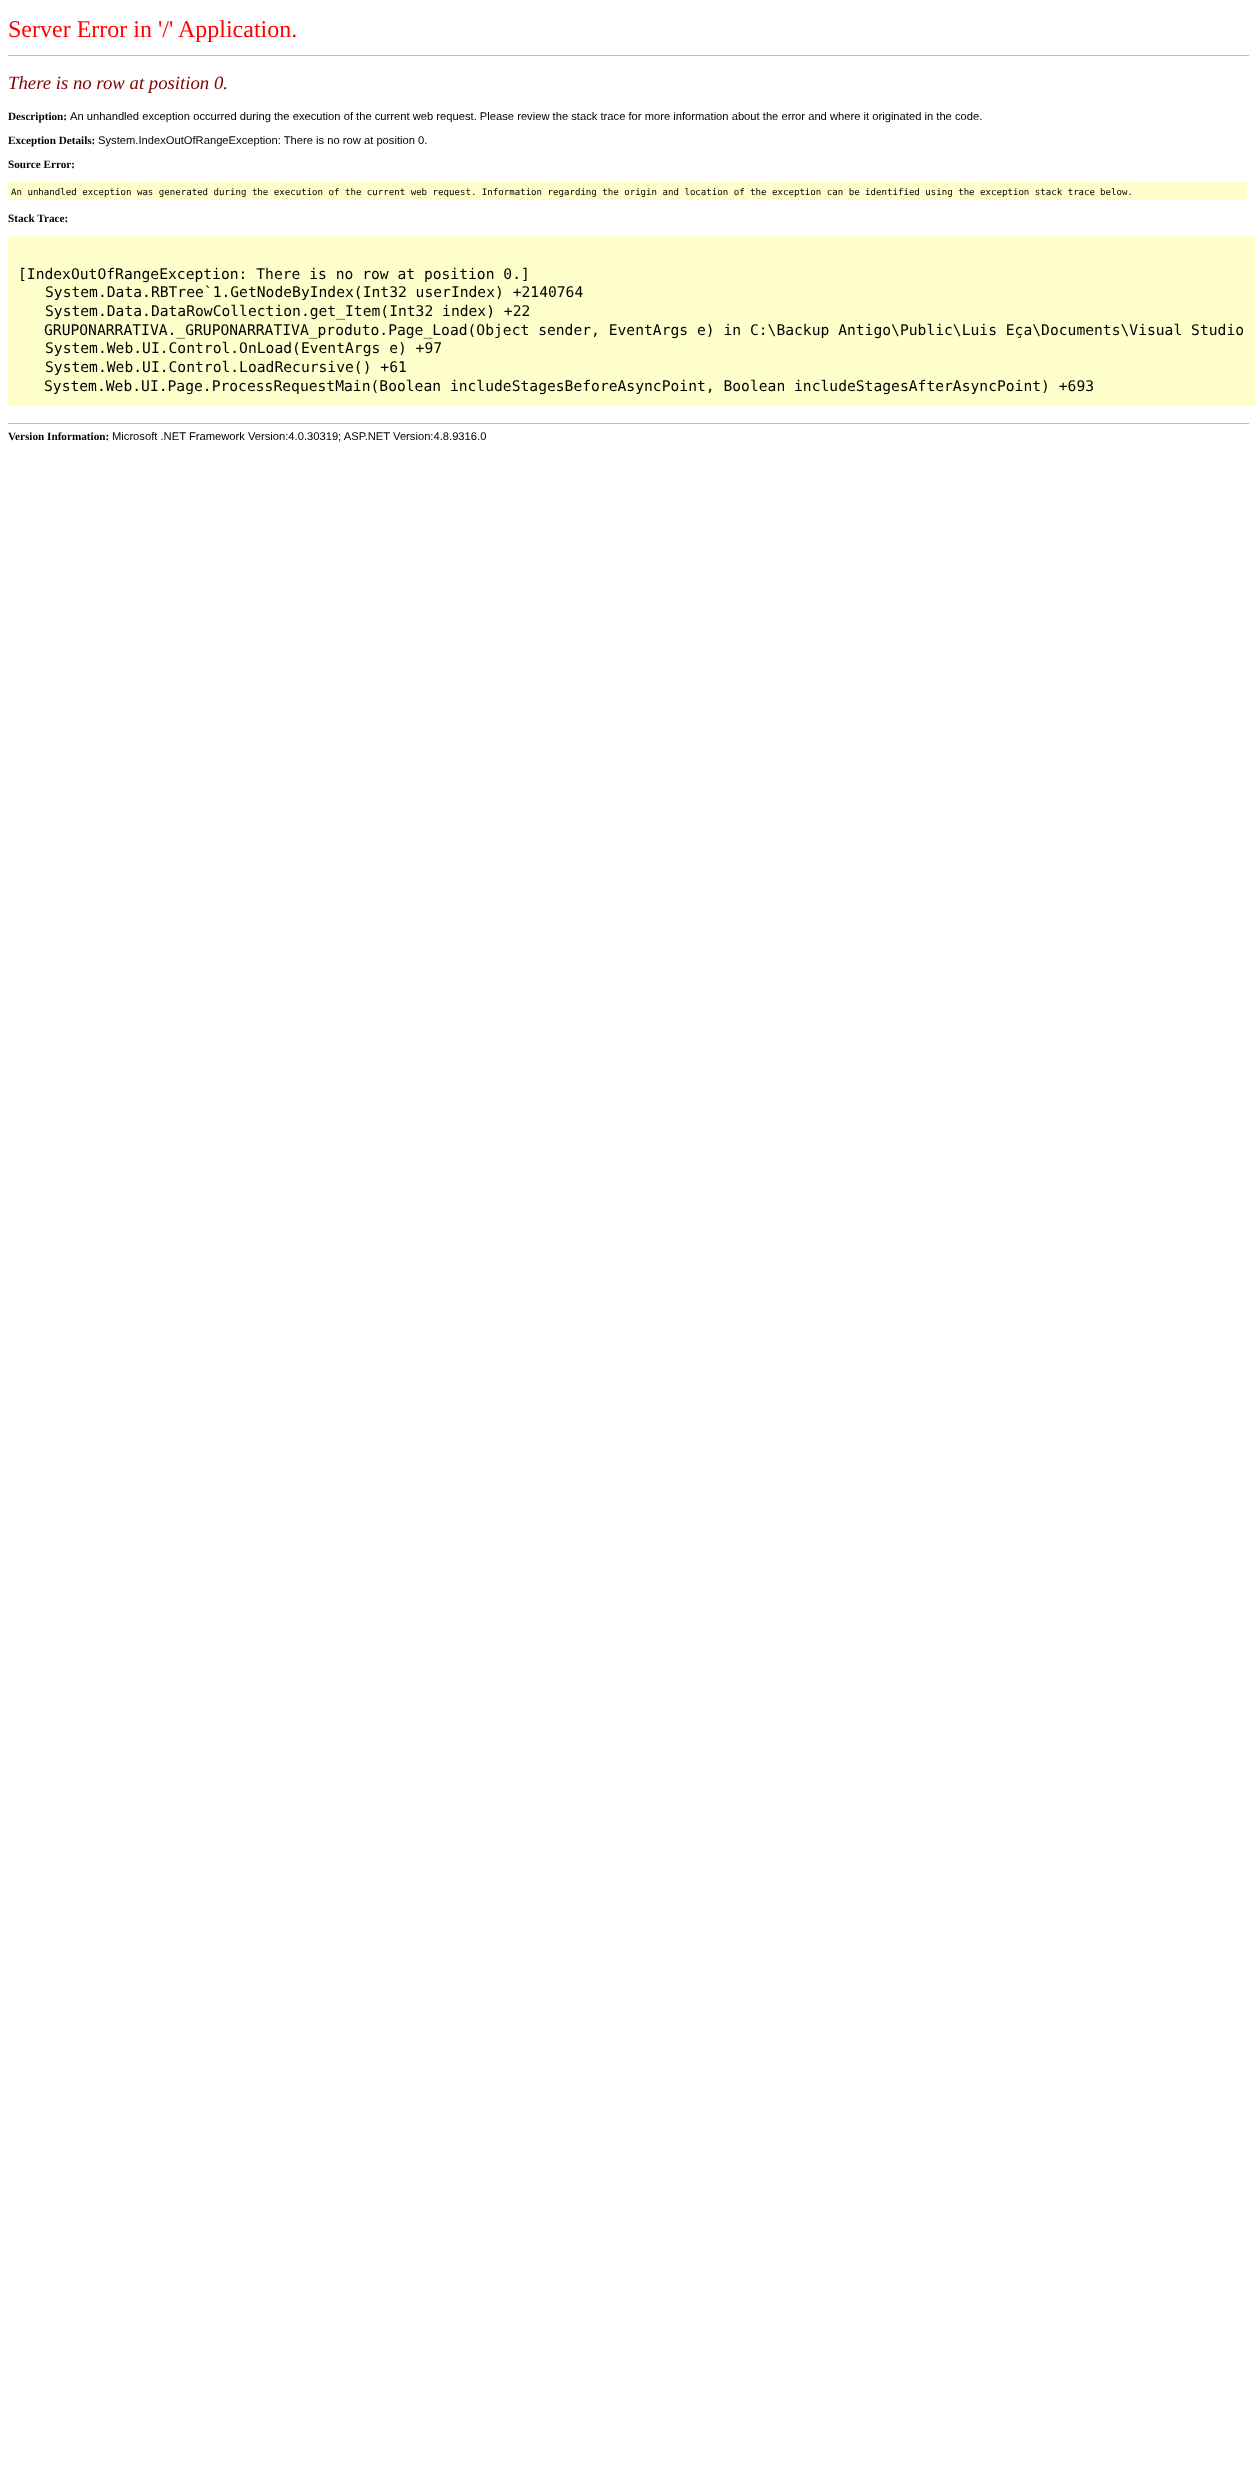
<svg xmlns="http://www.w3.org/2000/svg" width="1255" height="2491">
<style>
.a{font:24px Liberation Serif;fill:#f00}
.b{font:italic 18.75px Liberation Serif;fill:#800000}
.c{font:bold 11.2px Liberation Serif;fill:#000}
.d{font:11.2px Liberation Sans;fill:#000}
.e{font:9.1px DejaVu Sans Mono;fill:#000}
.f{font:14.67px DejaVu Sans Mono;fill:#000}
</style>
<rect width="100%" height="100%" fill="#fff"/>
<path fill="#c0c0c0" d="M8 55h1241v1H8z"/>
<path fill="#ffc" d="M8 182h1239v18H8z"/>
<path fill="#ffc" d="M8 236h1247v170H8z"/>
<path fill="#c0c0c0" d="M8 423h1241v1H8z"/>
<text class="a" x="8" y="37">Server Error in '/' Application.</text>
<text class="b" x="8" y="89">There is no row at position 0.</text>
<text class="c" x="8" y="120">Description:</text>
<text class="d" x="70" y="120">An unhandled exception occurred during the execution of the current web request. Please review the stack trace for more information about the error and where it originated in the code.</text>
<text class="c" x="8" y="144">Exception Details:</text>
<text class="d" x="98" y="144">System.IndexOutOfRangeException: There is no row at position 0.</text>
<text class="c" x="8" y="168">Source Error:</text>
<text class="e" x="11" y="195">An unhandled exception was generated during the execution of the current web request. Information regarding the origin and location of the exception can be identified using the exception stack trace</text>
<text class="e" x="1100" y="195">below.</text>
<text class="c" x="8" y="222">Stack Trace:</text>
<text class="f" x="18" y="279">[IndexOutOfRangeException: There is no row at position 0.]</text>
<text class="f" x="45" y="297">System.Data.RBTree`1.GetNodeByIndex(Int32 userIndex) +2140764</text>
<text class="f" x="45" y="316">System.Data.DataRowCollection.get_Item(Int32 index) +22</text>
<text class="f" x="44" y="335">GRUPONARRATIVA._GRUPONARRATIVA_produto.Page_Load(Object sender, EventArgs e) in C:\Backup Antigo\Public\Luis Eça\Documents\Visual Studio</text>
<text class="f" x="45" y="353">System.Web.UI.Control.OnLoad(EventArgs e) +97</text>
<text class="f" x="45" y="372">System.Web.UI.Control.LoadRecursive() +61</text>
<text class="f" x="44" y="391">System.Web.UI.Page.ProcessRequestMain(Boolean includeStagesBeforeAsyncPoint, Boolean includeStagesAfterAsyncPoint) +693</text>
<text class="c" x="8" y="440">Version Information:</text>
<text class="d" x="112" y="440">Microsoft .NET Framework Version:4.0.30319; ASP.NET Version:4.8.9316.0</text>
</svg>
